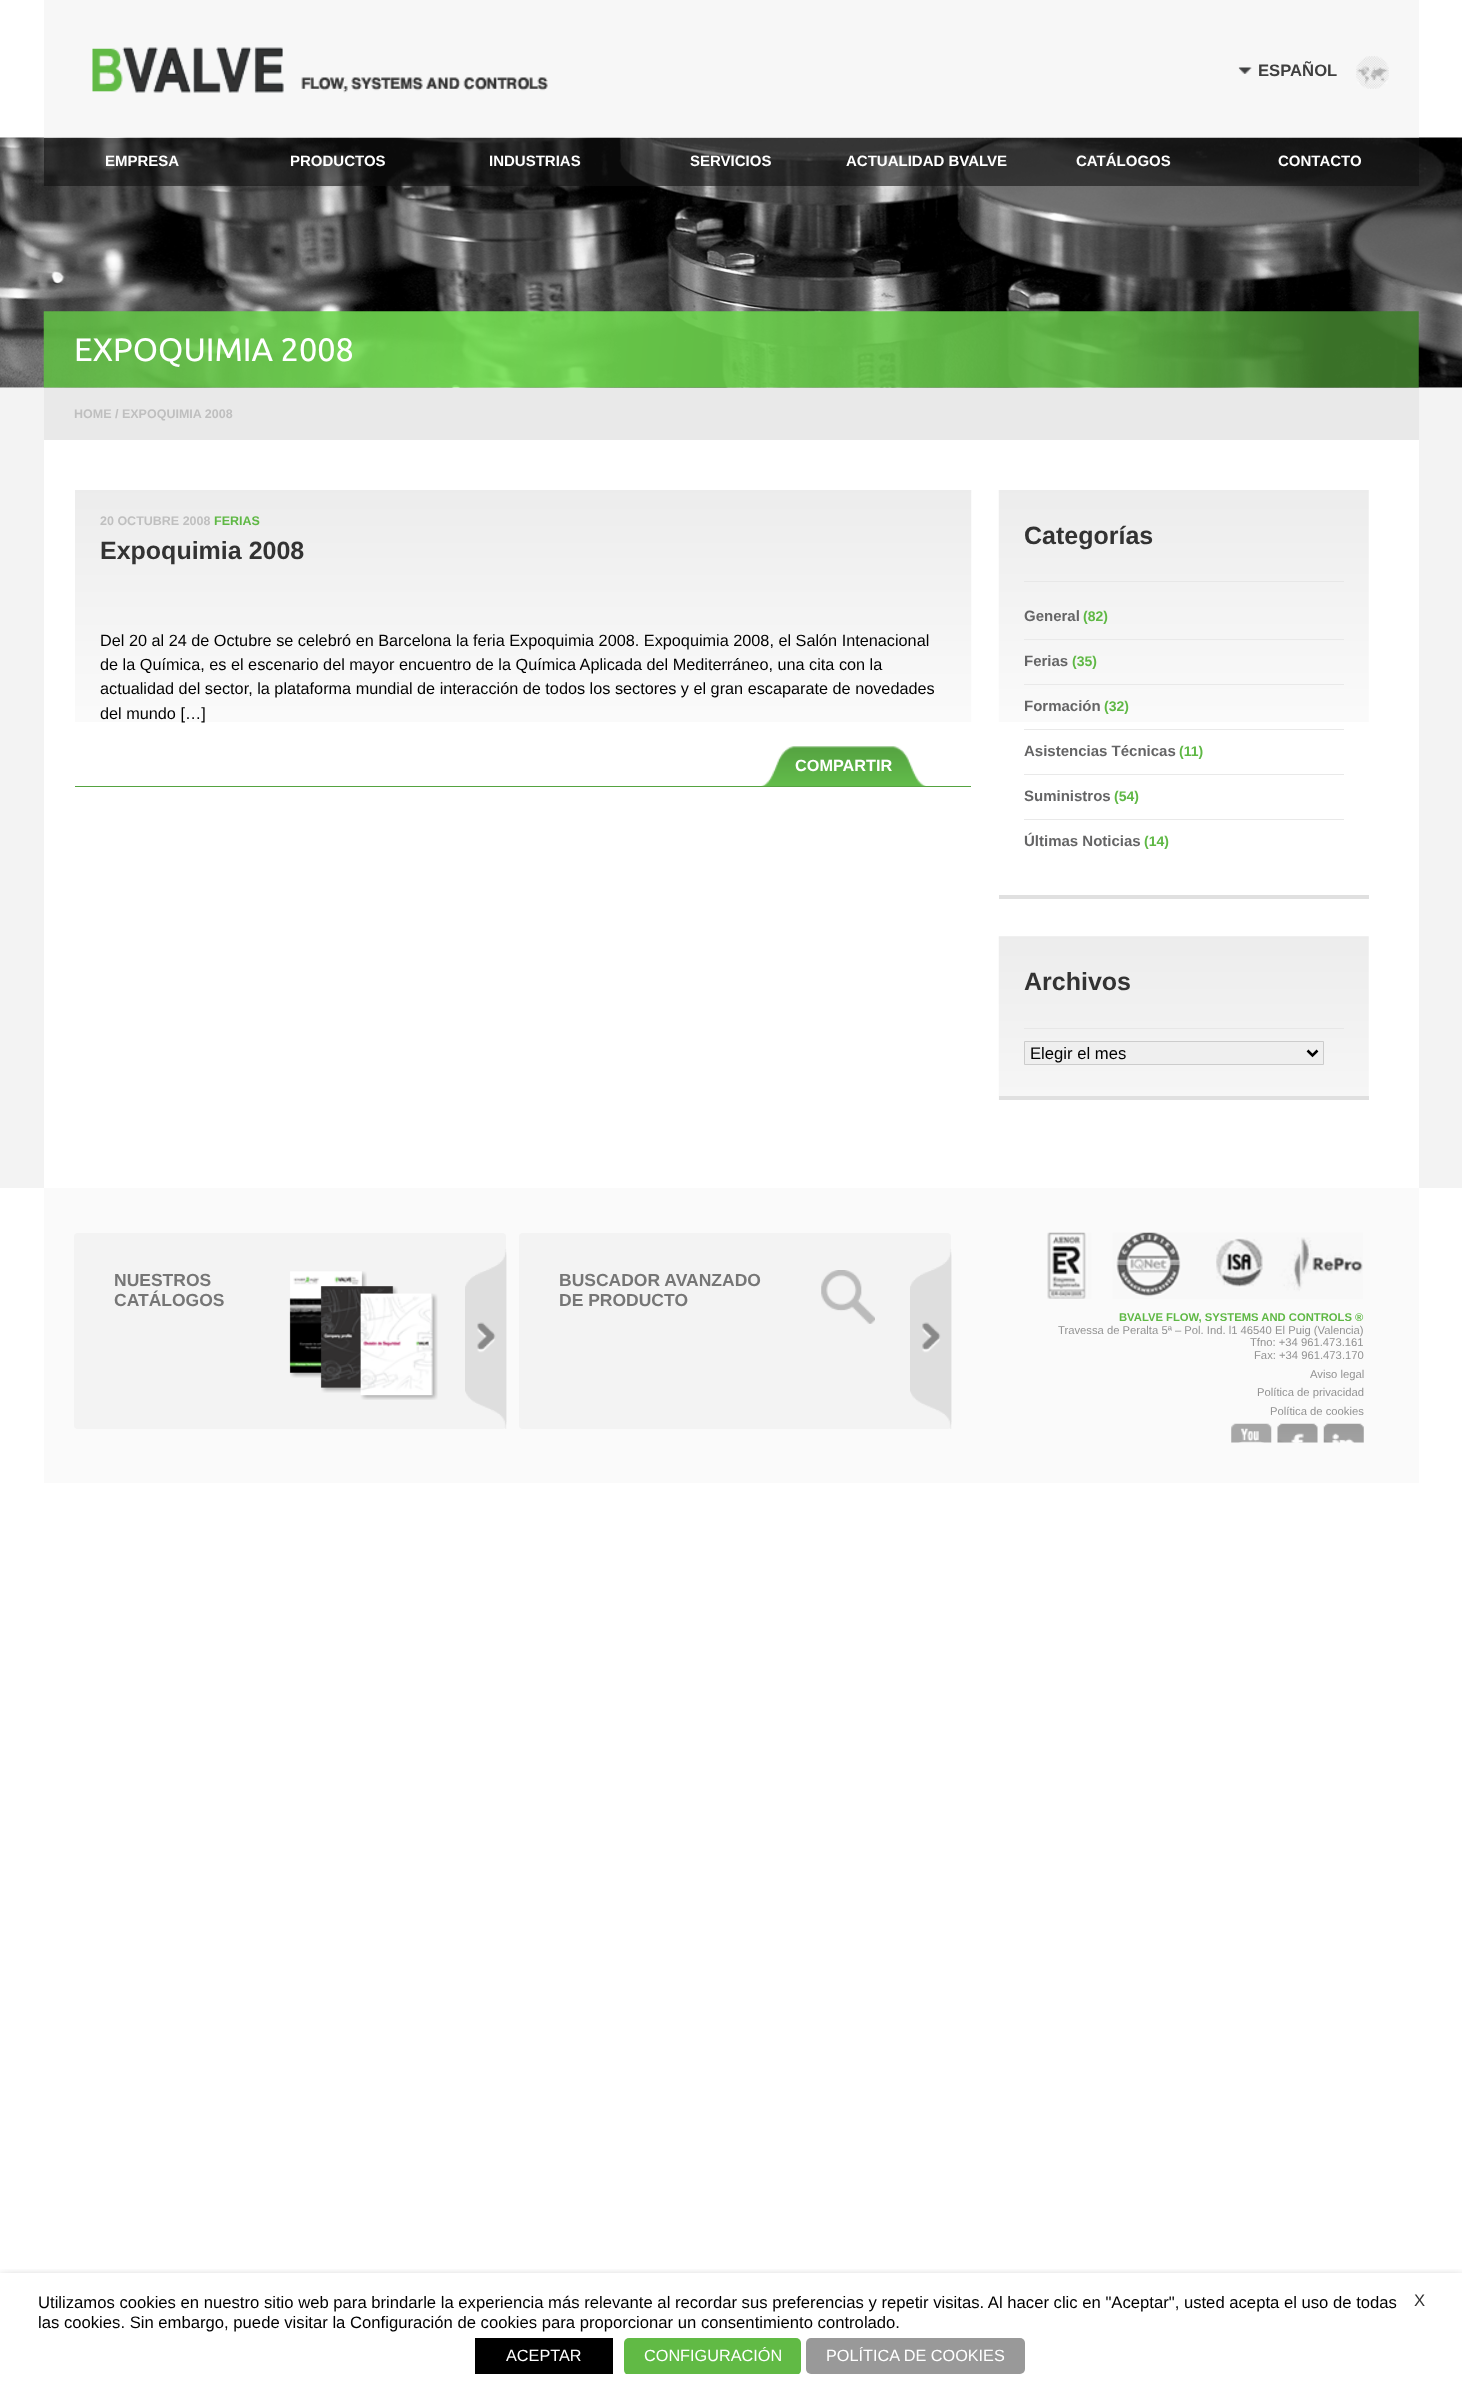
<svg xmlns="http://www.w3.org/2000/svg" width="1462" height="2398">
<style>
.a{font:bold 16.67px Liberation Sans;fill:#3f3f3f}
.b{font:bold 15px Liberation Sans;fill:#fff}
.c{font:32.5px Ubuntu;fill:#fff}
.d{font:bold 12.5px Liberation Sans;fill:#bfbfbf}
.e{font:bold 12.5px Liberation Sans;fill:#5fb845}
.f{font:bold 25px Liberation Sans;fill:#333}
.g{font:16.25px Liberation Sans;fill:#000}
.h{font:bold 16.25px Liberation Sans;fill:#fff}
.i{font:bold 15px Liberation Sans;fill:#656566}
.j{font:bold 14px Liberation Sans;fill:#5fb845}
.k{font:16.67px Liberation Sans;fill:#000}
.l{font:bold 17.5px Liberation Sans;fill:#767676}
.m{font:bold 11.25px Liberation Sans;fill:#5fb845}
.n{font:11.25px Liberation Sans;fill:#929292}
.o{font:16.25px Liberation Sans;fill:#fff}
.p{font:16.67px Liberation Sans;fill:#333}
</style>
<defs>
<clipPath id="clip1"><path d="M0 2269h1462v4H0z"/></clipPath>
</defs>
<rect width="100%" height="100%" fill="#fff"/>
<image href="4.png" x="0" y="137" width="1462" height="251"/>
<path fill="#efefef80" d="M44 0h1375v138H44z"/>
<image href="1.png" x="92" y="47" width="456" height="46"/>
<image href="2.png" x="1356" y="56" width="33" height="33"/>
<image href="3.png" x="1238" y="67" width="14" height="7"/>
<path fill="#10101099" d="M44 138h1375v48H44z"/>
<image href="5.png" x="43" y="311" width="1376" height="77"/>
<path fill="#f3f3f3" d="M0 388h1462v800H0z"/>
<path fill="#e9e9e9" d="M44 388h1375v52H44z"/>
<path fill="#fff" d="M44 440h1375v748H44z"/>
<image href="6.png" x="75" y="490" width="897" height="232"/>
<path fill="#55a341" d="M75 786h896v1H75z"/>
<image href="7.png" x="761" y="746" width="165" height="40"/>
<image href="8.png" x="998" y="490" width="371" height="232"/>
<path fill="#e0e0e0" d="M999 895h370v4H999z"/>
<path fill="#e7e7e7" d="M1024 581h320v1H1024z"/>
<path fill="#e9e9e9" d="M1024 639h320v1H1024z"/>
<path fill="#e9e9e9" d="M1024 684h320v1H1024z"/>
<path fill="#e9e9e9" d="M1024 729h320v1H1024z"/>
<path fill="#e9e9e9" d="M1024 774h320v1H1024z"/>
<path fill="#e9e9e9" d="M1024 819h320v1H1024z"/>
<image href="9.png" x="998" y="936" width="371" height="164"/>
<path fill="#e0e0e0" d="M999 1096h370v4H999z"/>
<path fill="#e7e7e7" d="M1024 1028h320v1H1024z"/>
<path fill="#efefef" stroke="#ccc" d="M1024.5 1041.5h299v23H1024.5z"/>
<path fill="none" stroke="#000" stroke-width="2.5" d="M1307.5 1050.5l5 5l5-5"/>
<path fill="#fafafa" d="M44 1188h1375v295H44z"/>
<rect fill="#f3f3f3" x="74" y="1233" width="432" height="196" rx="4"/>
<image href="10.png" x="289" y="1271" width="149" height="129"/>
<image href="11.png" x="465" y="1249" width="42" height="180"/>
<image href="12.png" x="465" y="1252" width="42" height="177"/>
<rect fill="#f3f3f3" x="519" y="1233" width="432" height="196" rx="4"/>
<image href="13.png" x="821" y="1270" width="54" height="54"/>
<image href="14.png" x="910" y="1249" width="42" height="180"/>
<image href="15.png" x="910" y="1252" width="42" height="177"/>
<image href="16.png" x="1047" y="1232" width="316" height="67"/>
<image href="17.png" x="1231" y="1423" width="41" height="20"/>
<image href="18.png" x="1277" y="1423" width="41" height="20"/>
<image href="19.png" x="1323" y="1423" width="41" height="20"/>
<g clip-path="url(#clip1)">
<path fill="#00000080" filter="blur(6px)" d="M0 2279h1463v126H0z"/>
</g>
<path fill="#000" d="M475 2338h138v36H475z"/>
<rect fill="#61ba45" x="624" y="2338" width="177" height="37" rx="5"/>
<path fill="#fff" d="M626 2374h173v1H626z"/>
<rect fill="#999" x="806" y="2338" width="219" height="36" rx="5"/>
<text class="a" x="1258" y="76">ESPAÑOL</text>
<text class="b" x="105" y="166">EMPRESA</text>
<text class="b" x="290" y="166">PRODUCTOS</text>
<text class="b" x="489" y="166">INDUSTRIAS</text>
<text class="b" x="690" y="166">SERVICIOS</text>
<text class="b" x="846" y="166">ACTUALIDAD BVALVE</text>
<text class="b" x="1076" y="166">CATÁLOGOS</text>
<text class="b" x="1278" y="166">CONTACTO</text>
<text class="c" x="74" y="361">EXPOQUIMIA 2008</text>
<text class="d" x="74" y="418">HOME / EXPOQUIMIA 2008</text>
<text class="d" x="100" y="525">20 OCTUBRE 2008</text>
<text class="e" x="214" y="525">FERIAS</text>
<text class="f" x="100" y="559">Expoquimia 2008</text>
<text class="g" x="100" y="646">Del 20 al 24 de Octubre se celebró en Barcelona la feria Expoquimia 2008. Expoquimia 2008, el Salón Intenacional</text>
<text class="g" x="100" y="670">de la Química, es el escenario del mayor encuentro de la Química Aplicada del Mediterráneo, una cita con la</text>
<text class="g" x="100" y="694">actualidad del sector, la plataforma mundial de interacción de todos los sectores y el gran escaparate de novedades</text>
<text class="g" x="100" y="719">del mundo […]</text>
<text class="h" x="795" y="771">COMPARTIR</text>
<text class="f" x="1024" y="544">Categorías</text>
<text class="i" x="1024" y="621">General</text>
<text class="j" x="1083" y="621">(82)</text>
<text class="i" x="1024" y="666">Ferias</text>
<text class="j" x="1072" y="666">(35)</text>
<text class="i" x="1024" y="711">Formación</text>
<text class="j" x="1104" y="711">(32)</text>
<text class="i" x="1024" y="756">Asistencias Técnicas</text>
<text class="j" x="1179" y="756">(11)</text>
<text class="i" x="1024" y="801">Suministros</text>
<text class="j" x="1114" y="801">(54)</text>
<text class="i" x="1024" y="846">Últimas Noticias</text>
<text class="j" x="1144" y="846">(14)</text>
<text class="f" x="1024" y="990">Archivos</text>
<text class="k" x="1030" y="1059">Elegir el mes</text>
<text class="l" x="114" y="1286">NUESTROS</text>
<text class="l" x="114" y="1306">CATÁLOGOS</text>
<text class="l" x="559" y="1286">BUSCADOR AVANZADO</text>
<text class="l" x="559" y="1306">DE PRODUCTO</text>
<text class="m" x="1119" y="1321">BVALVE FLOW, SYSTEMS AND CONTROLS ®</text>
<text class="n" x="1058" y="1334">Travessa de Peralta 5ª – Pol. Ind. l1 46540 El Puig (Valencia)</text>
<text class="n" x="1250" y="1346">Tfno: +34 961.473.161</text>
<text class="n" x="1254" y="1359">Fax: +34 961.473.170</text>
<text class="n" x="1310" y="1378">Aviso legal</text>
<text class="n" x="1257" y="1396">Política de privacidad</text>
<text class="n" x="1270" y="1415">Política de cookies</text>
<text class="k" x="38" y="2308">Utilizamos cookies en nuestro sitio web para brindarle la experiencia más relevante al recordar sus preferencias y repetir visitas. Al hacer clic en "Aceptar", usted acepta el uso de todas</text>
<text class="k" x="38" y="2328">las cookies. Sin embargo, puede visitar la Configuración de cookies para proporcionar un consentimiento controlado.</text>
<text class="o" x="506" y="2361">ACEPTAR</text>
<text class="o" x="644" y="2361">CONFIGURACIÓN</text>
<text class="o" x="826" y="2361">POLÍTICA DE COOKIES</text>
<text class="p" x="1414" y="2306">X</text>
</svg>
